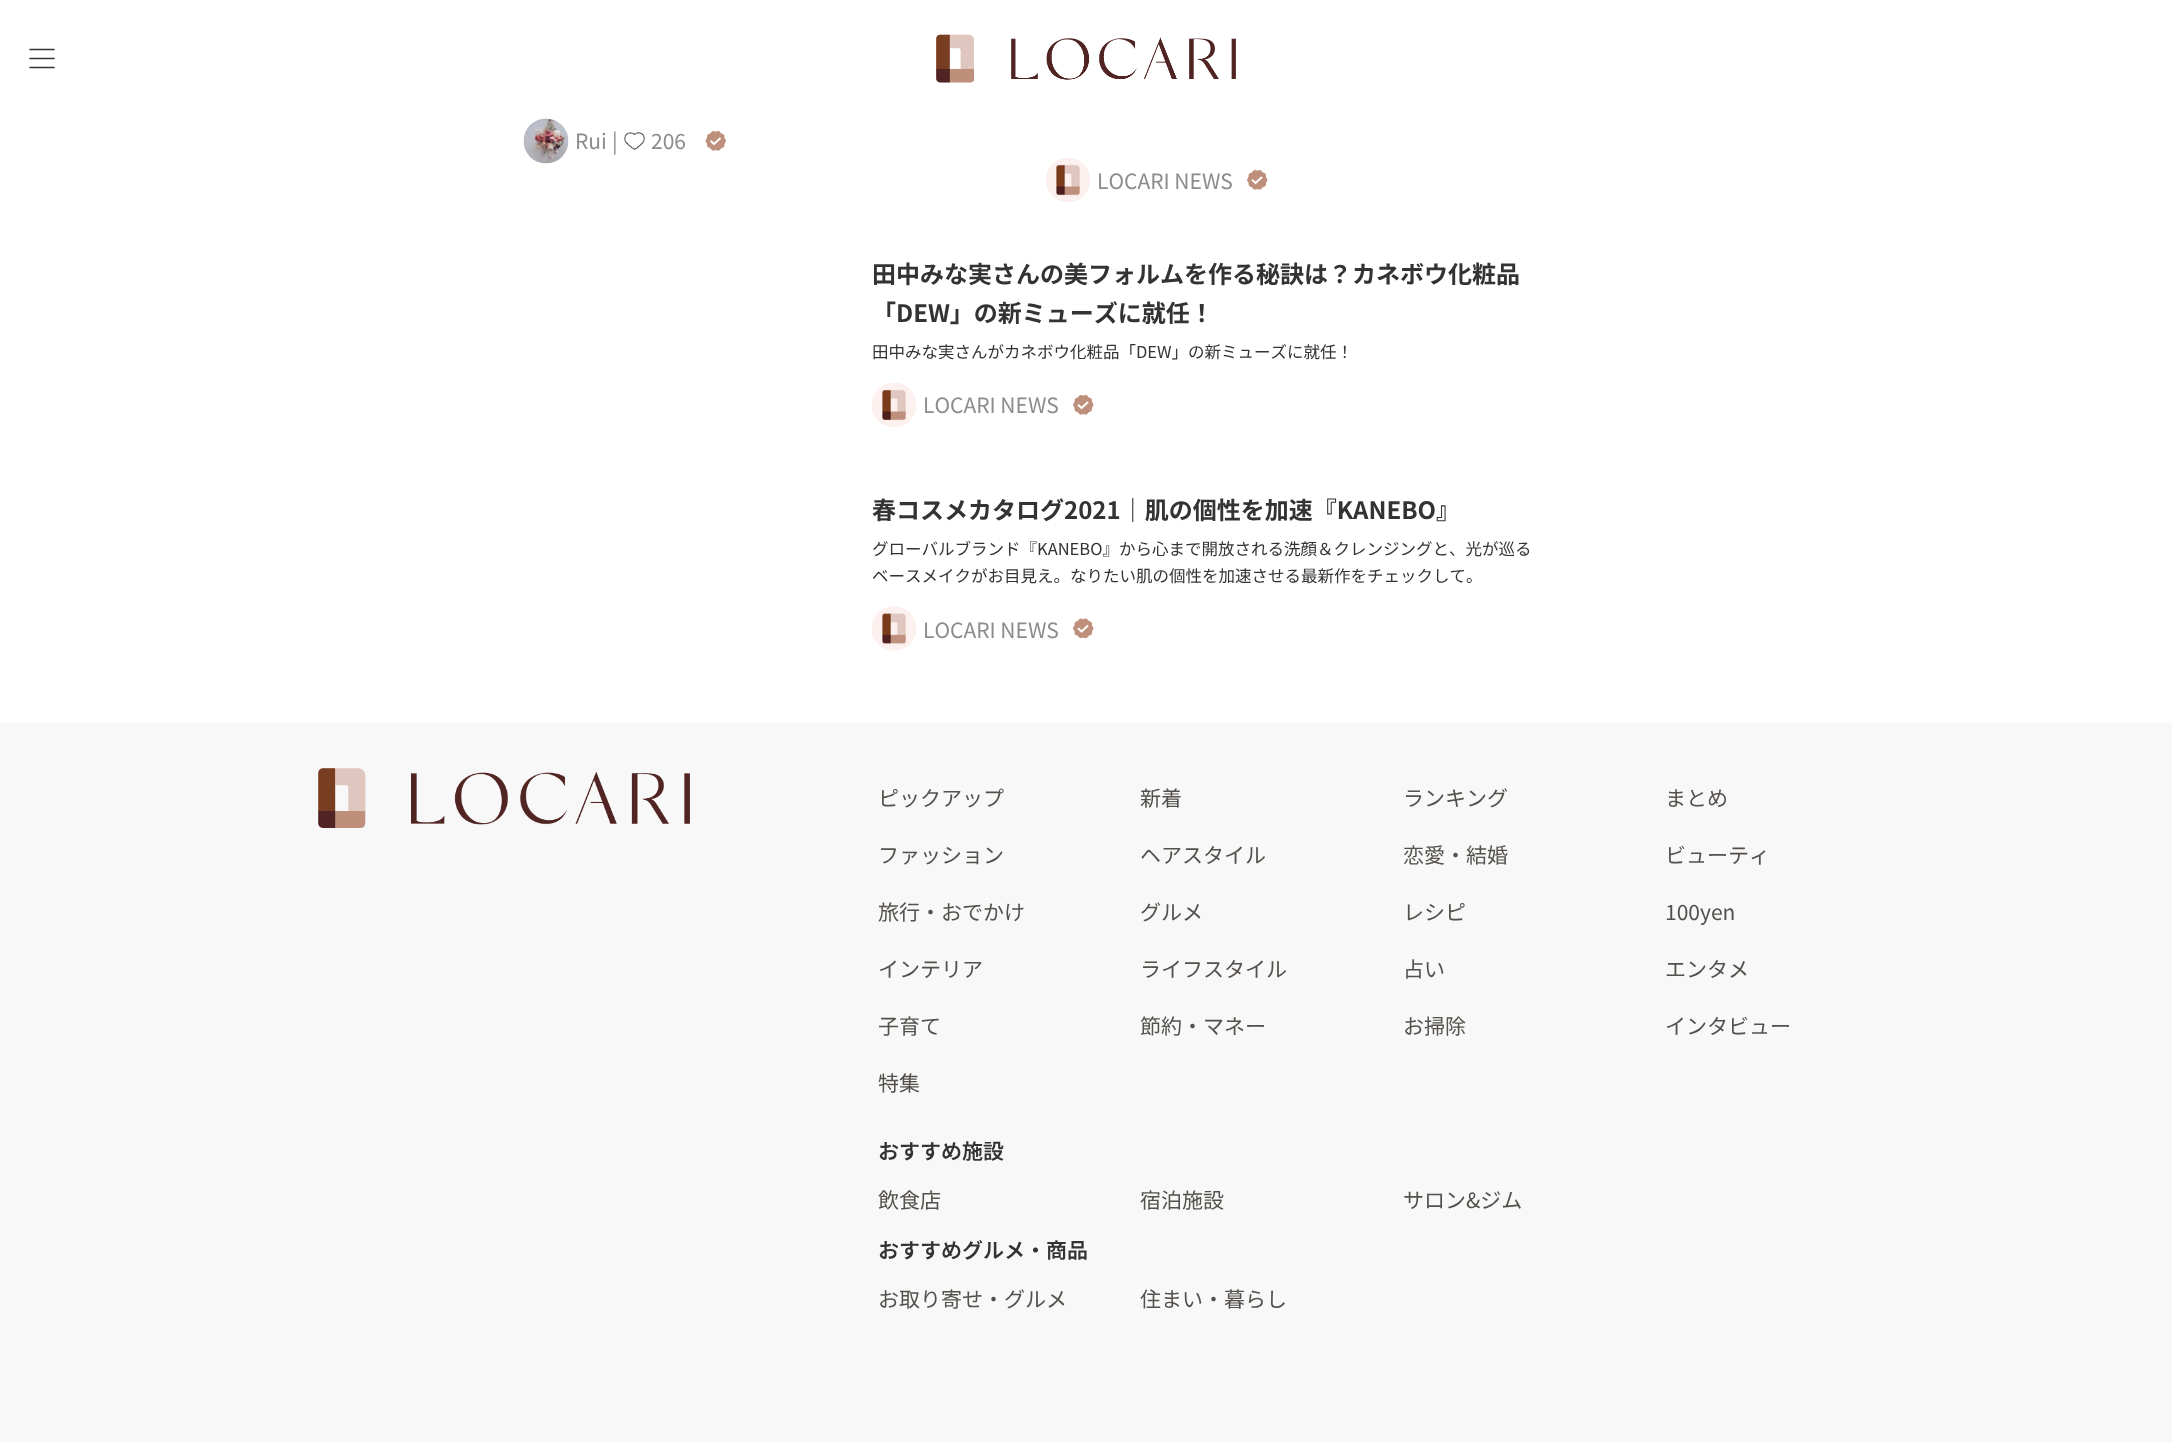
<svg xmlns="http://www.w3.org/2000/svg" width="2172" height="1442">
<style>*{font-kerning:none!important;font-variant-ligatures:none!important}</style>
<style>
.a{font:21px Noto Sans JP;fill:#8c8c8c}
.b{font:bold 24px Noto Sans JP;fill:#333}
.c{font:16.5px Noto Sans JP;fill:#333}
.d{font:21px Noto Sans JP;fill:#54514d}
.e{font:600 21px Noto Sans JP;fill:#333}
</style>
<rect width="100%" height="100%" fill="#fff"/>
<path fill="none" stroke="#333" stroke-width="1.5" stroke-linecap="round" d="M30 49.5h24m-24 9h24m-24 9h24"/>
<image href="1.png" x="936" y="34" width="300" height="49"/>
<image href="2.png" x="523" y="118" width="46" height="46"/>
<image href="3.png" x="624" y="132" width="21" height="18"/>
<image href="4.png" x="705" y="131" width="21" height="20"/>
<image href="5.png" x="1046" y="158" width="44" height="44"/>
<image href="6.png" x="1247" y="170" width="21" height="20"/>
<image href="7.png" x="872" y="383" width="44" height="44"/>
<image href="6.png" x="1073" y="395" width="21" height="20"/>
<image href="8.png" x="872" y="606" width="45" height="45"/>
<image href="9.png" x="1073" y="618" width="21" height="21"/>
<path fill="#f8f8f8" d="M0 723h2172v719H0z"/>
<image href="10.png" x="318" y="768" width="372" height="60"/>
<text class="a" x="575" y="149">Rui</text>
<text class="a" x="612" y="149">|</text>
<text class="a" x="651" y="149">206</text>
<text class="a" x="1097" y="189">LOCARI NEWS</text>
<text class="b" x="872" y="283">田中みな実さんの美フォルムを作る秘訣は？カネボウ化粧品</text>
<text class="b" x="872" y="322">「DEW」の新ミューズに就任！</text>
<text class="c" x="872" y="358">田中みな実さんがカネボウ化粧品「DEW」の新ミューズに就任！</text>
<text class="a" x="923" y="413">LOCARI NEWS</text>
<text class="b" x="872" y="519">春コスメカタログ2021｜肌の個性を加速『KANEBO』</text>
<text class="c" x="872" y="555">グローバルブランド『KANEBO』から心まで開放される洗顔＆クレンジングと、光が巡る</text>
<text class="c" x="872" y="582">ベースメイクがお目見え。なりたい肌の個性を加速させる最新作をチェックして。</text>
<text class="a" x="923" y="638">LOCARI NEWS</text>
<text class="d" x="878" y="806">ピックアップ</text>
<text class="d" x="1140" y="806">新着</text>
<text class="d" x="1403" y="806">ランキング</text>
<text class="d" x="1665" y="806">まとめ</text>
<text class="d" x="878" y="863">ファッション</text>
<text class="d" x="1140" y="863">ヘアスタイル</text>
<text class="d" x="1403" y="863">恋愛・結婚</text>
<text class="d" x="1665" y="863">ビューティ</text>
<text class="d" x="878" y="920">旅行・おでかけ</text>
<text class="d" x="1140" y="920">グルメ</text>
<text class="d" x="1403" y="920">レシピ</text>
<text class="d" x="1665" y="920">100yen</text>
<text class="d" x="878" y="977">インテリア</text>
<text class="d" x="1140" y="977">ライフスタイル</text>
<text class="d" x="1403" y="977">占い</text>
<text class="d" x="1665" y="977">エンタメ</text>
<text class="d" x="878" y="1034">子育て</text>
<text class="d" x="1140" y="1034">節約・マネー</text>
<text class="d" x="1403" y="1034">お掃除</text>
<text class="d" x="1665" y="1034">インタビュー</text>
<text class="d" x="878" y="1091">特集</text>
<text class="e" x="878" y="1159">おすすめ施設</text>
<text class="d" x="878" y="1208">飲食店</text>
<text class="d" x="1140" y="1208">宿泊施設</text>
<text class="d" x="1403" y="1208">サロン&amp;ジム</text>
<text class="e" x="878" y="1258">おすすめグルメ・商品</text>
<text class="d" x="878" y="1307">お取り寄せ・グルメ</text>
<text class="d" x="1140" y="1307">住まい・暮らし</text>
</svg>
